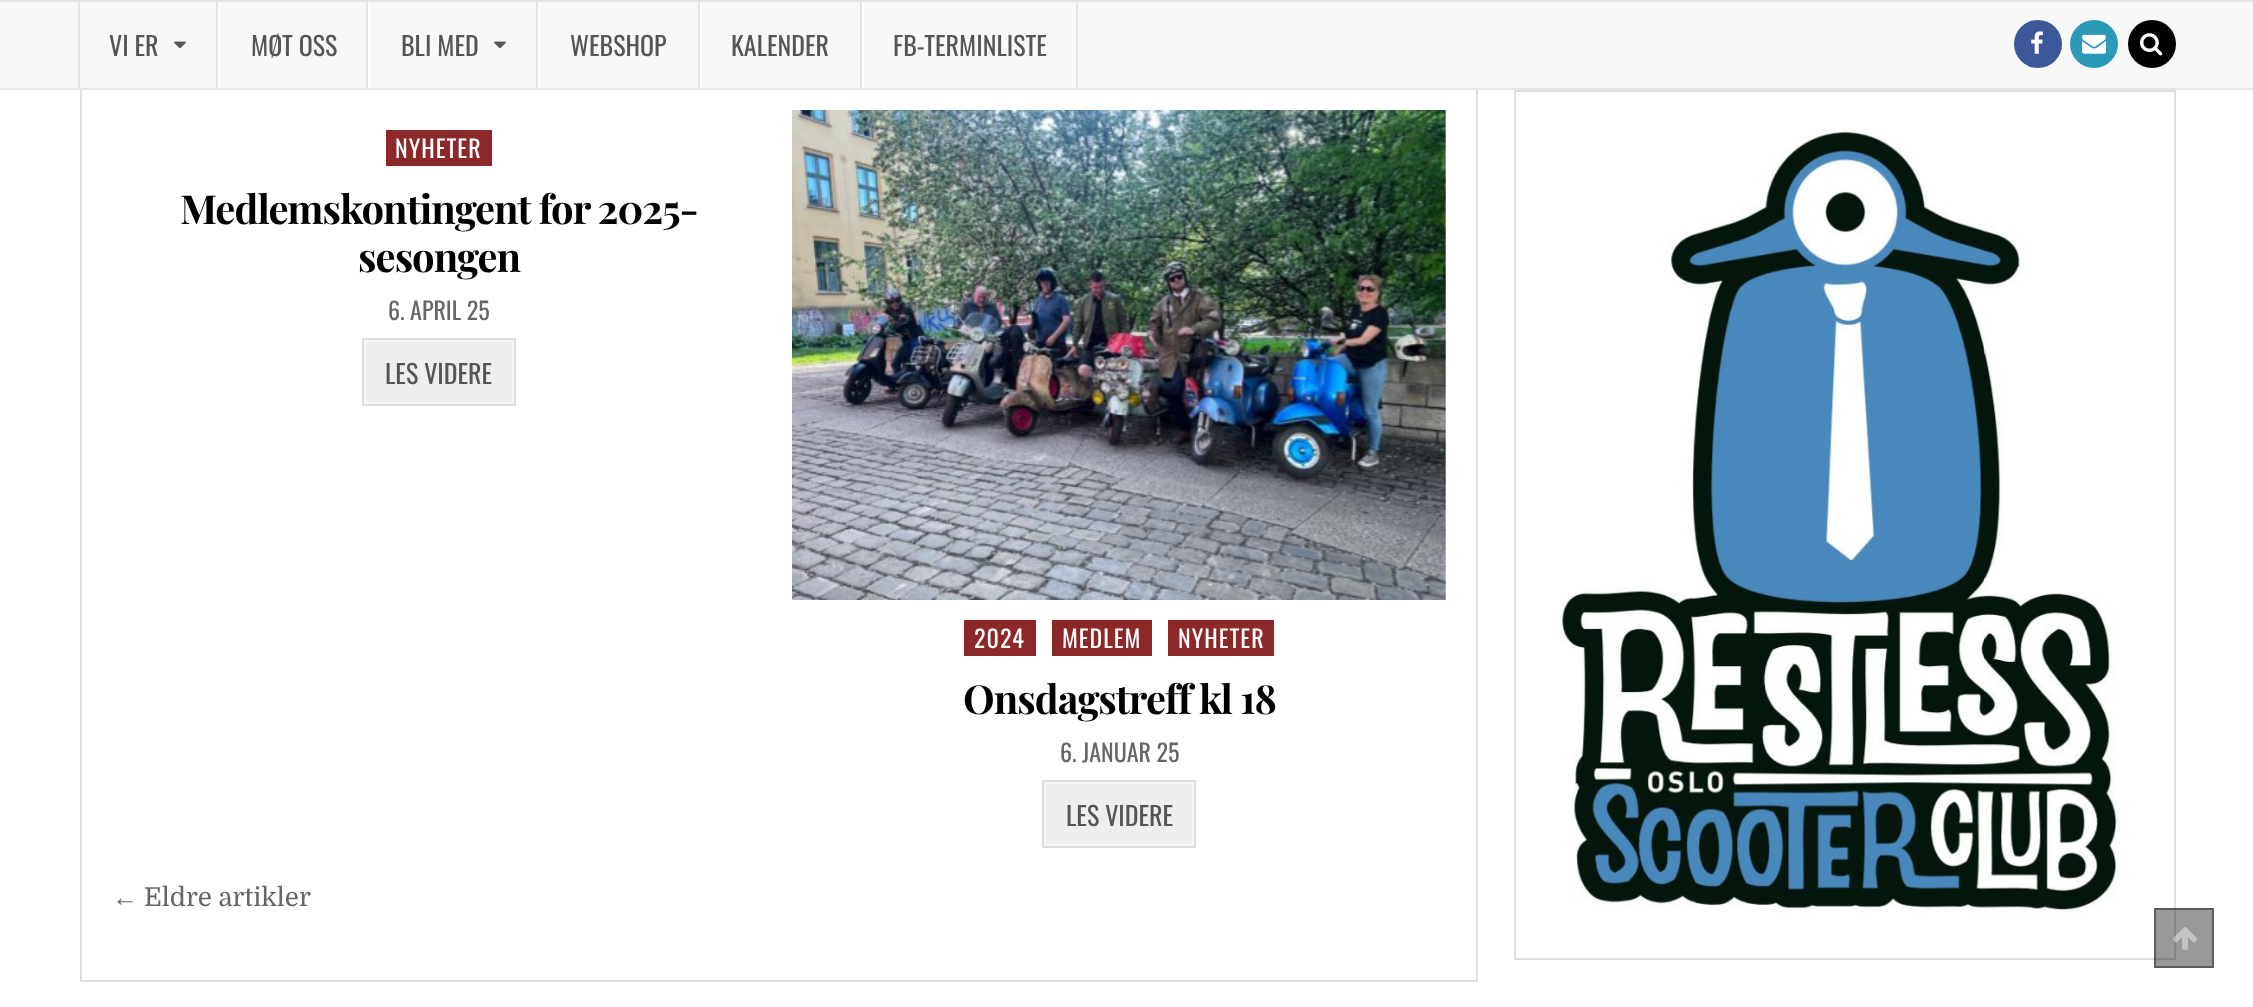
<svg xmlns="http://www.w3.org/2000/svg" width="2253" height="1007">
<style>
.a{font:26px Oswald;fill:#555}
.b{font:24px Oswald;letter-spacing:1px;fill:#fff}
.c{font:bold 40px Playfair Display;letter-spacing:-1px;fill:#000}
.d{font:24px Oswald;fill:#666}
.e{font:26px Liberation Sans;fill:#666}
.f{font:26px Domine;fill:#666}
</style>
<rect width="100%" height="100%" fill="#fff"/>
<path fill="none" stroke="#ddd" stroke-width="2" d="M81 -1h1396v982H81z"/>
<path fill="#f8f8f8" d="M0 2h2253v86H0z"/>
<path fill="#e5e5e5" d="M0 0h2253v2H0z"/>
<path fill="#e5e5e5" d="M0 88h2253v2H0z"/>
<path fill="#e5e5e5" d="M216 2h2v86H216z"/>
<path fill="#e5e5e5" d="M78 2h2v86H78z"/>
<image href="1.png" x="174" y="41" width="12" height="8"/>
<path fill="#e5e5e5" d="M366 2h2v86H366z"/>
<path fill="#fff" d="M218 2h2v86H218z"/>
<path fill="#e5e5e5" d="M536 2h2v86H536z"/>
<path fill="#fff" d="M368 2h2v86H368z"/>
<image href="1.png" x="494" y="41" width="12" height="8"/>
<path fill="#e5e5e5" d="M698 2h2v86H698z"/>
<path fill="#fff" d="M538 2h2v86H538z"/>
<path fill="#e5e5e5" d="M860 2h2v86H860z"/>
<path fill="#fff" d="M700 2h2v86H700z"/>
<path fill="#e5e5e5" d="M1076 2h2v86H1076z"/>
<path fill="#fff" d="M862 2h2v86H862z"/>
<circle fill="#3b5998" cx="2038" cy="44" r="24"/>
<image href="2.png" x="2031" y="31" width="12" height="23"/>
<circle fill="#2c9ab7" cx="2094" cy="44" r="24"/>
<image href="3.png" x="2082" y="34" width="24" height="20"/>
<circle fill="#000" cx="2152" cy="44" r="24"/>
<image href="4.png" x="2140" y="33" width="23" height="23"/>
<path fill="#8c2828" d="M386 130h106v36H386z"/>
<path fill="#eee" d="M366 342h146v60H366z"/>
<path fill="none" stroke="#ddd" stroke-width="2" d="M363 339h152v66H363z"/>
<path fill="none" stroke="#f6f6f6" stroke-width="2" d="M365 341h148v62H365z"/>
<image href="5.png" x="792" y="110" width="654" height="490"/>
<path fill="#8c2828" d="M964 620h72v36H964z"/>
<path fill="#8c2828" d="M1052 620h100v36H1052z"/>
<path fill="#8c2828" d="M1168 620h106v36H1168z"/>
<path fill="#eee" d="M1046 784h146v60H1046z"/>
<path fill="none" stroke="#ddd" stroke-width="2" d="M1043 781h152v66H1043z"/>
<path fill="none" stroke="#f6f6f6" stroke-width="2" d="M1045 783h148v62H1045z"/>
<path fill="none" stroke="#ddd" stroke-width="2" d="M1515 91h660v868H1515z"/>
<image href="6.png" x="1560" y="129" width="560" height="784"/>
<path fill="#00000066" d="M2154 908h60v60H2154z"/>
<path fill="none" stroke="#00000066" stroke-width="2" d="M2155 909h58v58H2155z"/>
<image href="7.png" x="2173" y="927" width="24" height="23"/>
<text class="a" x="109" y="56">VI ER</text>
<text class="a" x="251" y="56">MØT OSS</text>
<text class="a" x="401" y="56">BLI MED</text>
<text class="a" x="570" y="56">WEBSHOP</text>
<text class="a" x="731" y="56">KALENDER</text>
<text class="a" x="893" y="56">FB-TERMINLISTE</text>
<text class="b" x="395" y="158">NYHETER</text>
<text class="c" x="180" y="224">Medlemskontingent for 2025-</text>
<text class="c" x="358" y="272">sesongen</text>
<text class="d" x="388" y="320">6. APRIL 25</text>
<text class="a" x="385" y="384">LES VIDERE</text>
<text class="b" x="974" y="648">2024</text>
<text class="b" x="1062" y="648">MEDLEM</text>
<text class="b" x="1178" y="648">NYHETER</text>
<text class="c" x="963" y="714">Onsdagstreff kl 18</text>
<text class="d" x="1060" y="762">6. JANUAR 25</text>
<text class="a" x="1066" y="826">LES VIDERE</text>
<text class="e" x="112" y="906">←</text>
<text class="f" x="144" y="906">Eldre artikler</text>
</svg>
